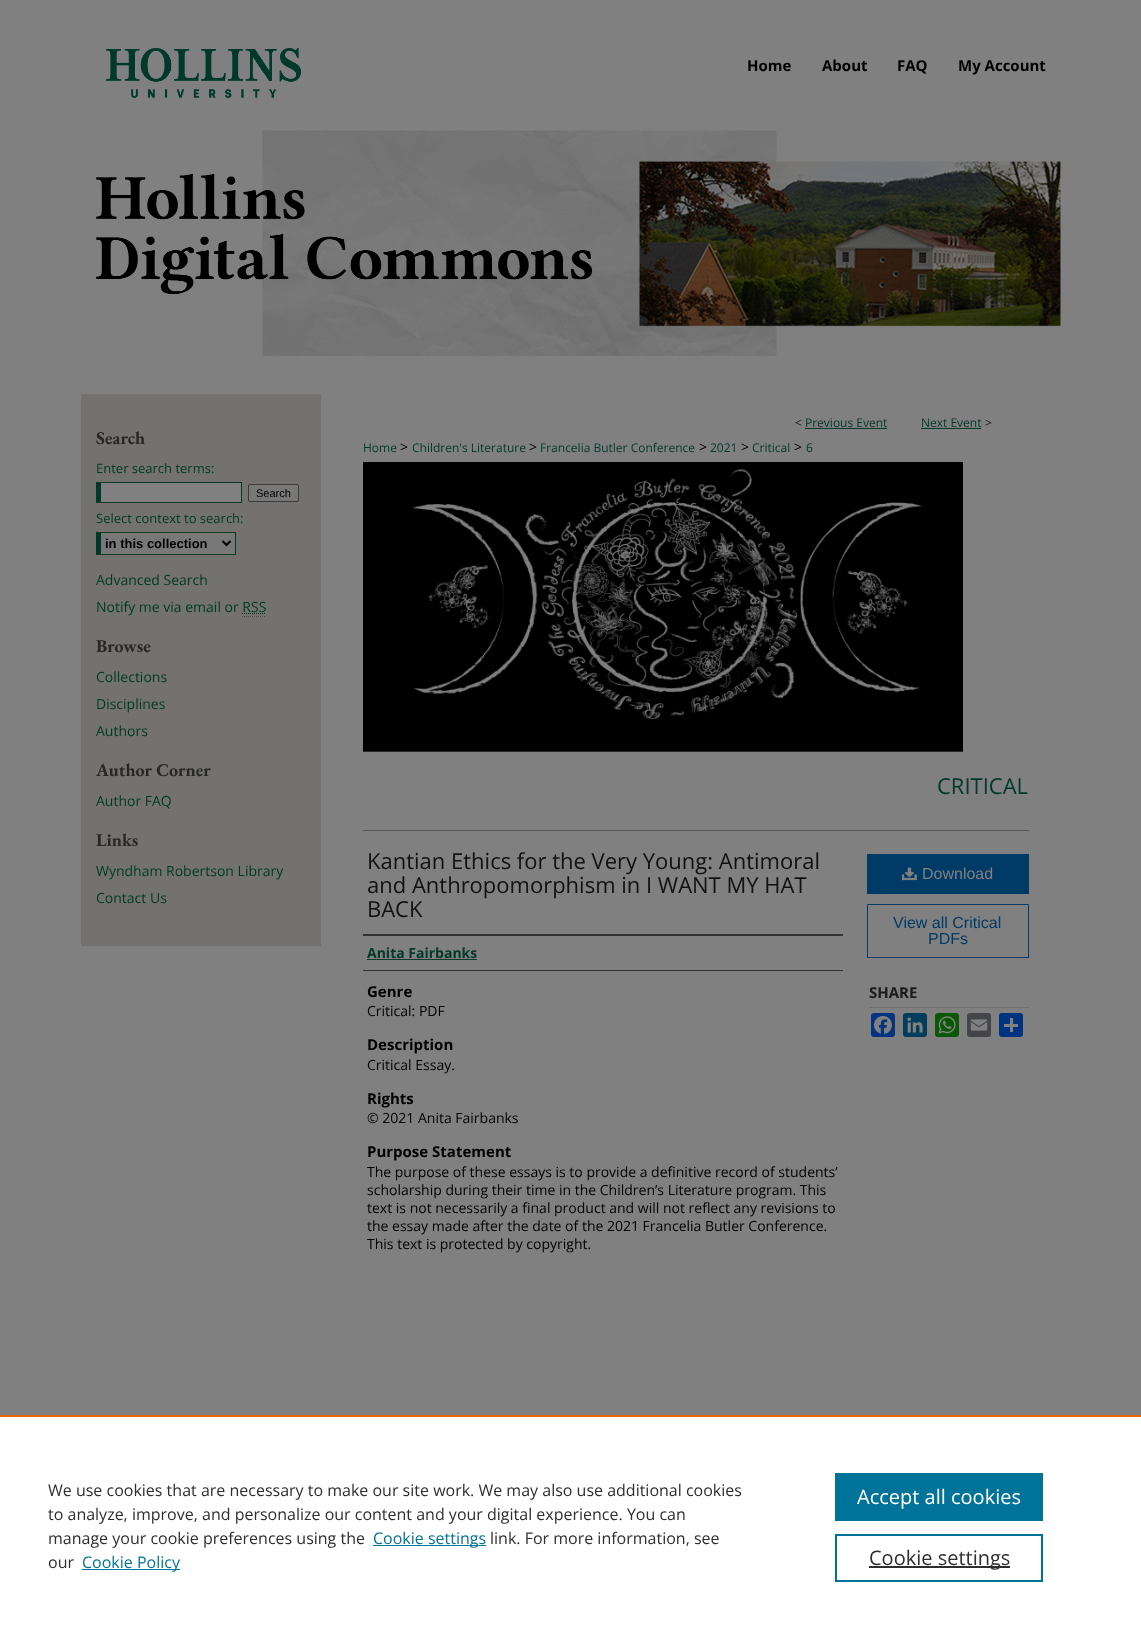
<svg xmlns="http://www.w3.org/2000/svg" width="1141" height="1635">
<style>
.a{font:bold 15px Open Sans;fill:#000}
.b{font:bold 18px EB Garamond;fill:#272725}
.c{font:13px Open Sans;fill:#00382a}
.d{font:11px Liberation Sans;fill:#000}
.e{font:bold 13px Liberation Sans;fill:#000}
.f{font:14px Open Sans;fill:#00382a}
.g{font:12px Open Sans;fill:#111}
.h{font:12px Open Sans;fill:#00382a}
.i{font:14px Open Sans;fill:#000}
.j{font:22px Open Sans;fill:#00382a}
.k{font:22px Open Sans;fill:#111}
.l{font:bold 14px Open Sans;fill:#00382a}
.m{font:16px Liberation Sans;fill:#808080}
.n{font:16px Liberation Sans;fill:#003a66}
.o{font:bold 15px Open Sans;fill:#1a1a1a}
.p{font:16px Open Sans;fill:#2e2e2e}
.q{font:16px Open Sans;fill:#007398}
.r{font:20px Open Sans;fill:#fff}
.s{font:20px Open Sans;fill:#2e2e2e}
</style>
<rect width="100%" height="100%" fill="#808080"/>
<image href="1.png" x="106" y="48" width="195" height="50"/>
<image href="2.png" x="96" y="130" width="965" height="226"/>
<path fill="#73726f" d="M81 394h240v552H81z"/>
<path fill="#808080" d="M101 483h140v19H101z"/>
<path fill="#00382a" d="M96 482h146v1H96z"/>
<path fill="#00382a" d="M241 482h1v21H241z"/>
<path fill="#00382a" d="M96 502h146v1H96z"/>
<path fill="#00382a" d="M96 482h5v21H96z"/>
<rect fill="#787878" stroke="#3b3b3b" x="248.5" y="484.5" width="50" height="17" rx="1.5"/>
<path fill="#787878" d="M101 533h134v21H101z"/>
<path fill="#00382a" d="M96 532h140v1H96z"/>
<path fill="#00382a" d="M235 532h1v23H235z"/>
<path fill="#00382a" d="M96 554h140v1H96z"/>
<path fill="#00382a" d="M96 532h5v23H96z"/>
<path fill="none" stroke="#000" stroke-width="2" d="M222.5 541l4 4l4-4"/>
<path fill="none" stroke="#00382a" stroke-dasharray="1 1" d="M242 613.5h24"/>
<path fill="none" stroke="#4d4d4d" stroke-dasharray="1 1" d="M242 616.5h24"/>
<path fill="#00382a" d="M805 428h82v1H805z"/>
<path fill="#00382a" d="M921 428h60v1H921z"/>
<image href="3.png" x="363" y="462" width="600" height="290"/>
<path fill="#555" d="M363 830h666v1H363z"/>
<path fill="#333" d="M363 934h480v2H363z"/>
<path fill="#333" d="M363 970h480v1H363z"/>
<path fill="#00382a" d="M367 959h110v1H367z"/>
<path fill="#003a66" d="M867 854h162v40H867z"/>
<image href="4.png" x="902" y="867" width="15" height="14"/>
<path fill="none" stroke="#003a66" d="M867.5 904.5h161v53H867.5z"/>
<path fill="#6f6f6f" d="M869 1007h160v1H869z"/>
<rect fill="#043380" x="871" y="1013" width="24" height="24" rx="3"/>
<image href="5.png" x="874" y="1016" width="18" height="18"/>
<rect fill="#003e5b" x="903" y="1013" width="24" height="24" rx="3"/>
<image href="6.png" x="907" y="1017" width="16" height="16"/>
<rect fill="#095805" x="935" y="1013" width="24" height="24" rx="3"/>
<image href="7.png" x="938" y="1016" width="18" height="18"/>
<rect fill="#444548" x="967" y="1013" width="24" height="24" rx="3"/>
<image href="8.png" x="970" y="1019" width="18" height="12"/>
<rect fill="#013380" x="999" y="1013" width="24" height="24" rx="3"/>
<path fill="#808080" d="M1010 1018h3v14H1010z"/>
<path fill="#808080" d="M1004 1024h14v3H1004z"/>
<path fill="#fff" d="M0 1417h1141v218H0z"/>
<path fill="#eb6500" d="M0 1415h1141v2H0z"/>
<path fill="#007398" d="M373 1545h113v1H373z"/>
<path fill="#007398" d="M82 1569h98v1H82z"/>
<path fill="#007398" d="M835 1473h208v48H835z"/>
<path fill="none" stroke="#007398" stroke-width="2" d="M836 1535h206v46H836z"/>
<path fill="#2e2e2e" d="M869 1566h141v2H869z"/>
<text class="a" x="747" y="71">Home</text>
<text class="a" x="822" y="71">About</text>
<text class="a" x="897" y="71">FAQ</text>
<text class="a" x="958" y="71">My Account</text>
<text class="b" x="96" y="444">Search</text>
<text class="c" x="96" y="473">Enter search terms:</text>
<text class="d" x="256" y="497">Search</text>
<text class="c" x="96" y="523">Select context to search:</text>
<text class="e" x="105" y="548">in this collection</text>
<text class="f" x="96" y="585">Advanced Search</text>
<text class="f" x="96" y="612">Notify me via email or RSS</text>
<text class="b" x="96" y="652">Browse</text>
<text class="f" x="96" y="682">Collections</text>
<text class="f" x="96" y="709">Disciplines</text>
<text class="f" x="96" y="736">Authors</text>
<text class="b" x="96" y="776">Author Corner</text>
<text class="f" x="96" y="806">Author FAQ</text>
<text class="b" x="96" y="846">Links</text>
<text class="f" x="96" y="876">Wyndham Robertson Library</text>
<text class="f" x="96" y="903">Contact Us</text>
<text class="g" x="795" y="427">&lt;</text>
<text class="h" x="805" y="427">Previous Event</text>
<text class="h" x="921" y="427">Next Event</text>
<text class="g" x="985" y="427">&gt;</text>
<text class="h" x="363" y="452">Home</text>
<text class="i" x="400" y="452">&gt;</text>
<text class="h" x="412" y="452">Children's Literature</text>
<text class="i" x="529" y="452">&gt;</text>
<text class="h" x="540" y="452">Francelia Butler Conference</text>
<text class="i" x="699" y="452">&gt;</text>
<text class="h" x="710" y="452">2021</text>
<text class="i" x="741" y="452">&gt;</text>
<text class="h" x="752" y="452">Critical</text>
<text class="i" x="794" y="452">&gt;</text>
<text class="h" x="806" y="452">6</text>
<text class="j" x="937" y="794">CRITICAL</text>
<text class="k" x="367" y="869">Kantian Ethics for the Very Young: Antimoral</text>
<text class="k" x="367" y="893">and Anthropomorphism in I WANT MY HAT</text>
<text class="k" x="367" y="917">BACK</text>
<text class="l" x="367" y="958">Anita Fairbanks</text>
<text class="a" x="367" y="997">Genre</text>
<text class="i" x="367" y="1016">Critical: PDF</text>
<text class="a" x="367" y="1050">Description</text>
<text class="i" x="367" y="1070">Critical Essay.</text>
<text class="a" x="367" y="1104">Rights</text>
<text class="i" x="367" y="1123">© 2021 Anita Fairbanks</text>
<text class="a" x="367" y="1157">Purpose Statement</text>
<text class="i" x="367" y="1177">The purpose of these essays is to provide a definitive record of students’</text>
<text class="i" x="367" y="1195">scholarship during their time in the Children’s Literature program. This</text>
<text class="i" x="367" y="1213">text is not necessarily a final product and will not reflect any revisions to</text>
<text class="i" x="367" y="1231">the essay made after the date of the 2021 Francelia Butler Conference.</text>
<text class="i" x="367" y="1249">This text is protected by copyright.</text>
<text class="m" x="922" y="879">Download</text>
<text class="n" x="893" y="928">View all Critical</text>
<text class="n" x="928" y="944">PDFs</text>
<text class="o" x="869" y="998">SHARE</text>
<text class="p" x="48" y="1496">We use cookies that are necessary to make our site work. We may also use additional cookies</text>
<text class="p" x="48" y="1520">to analyze, improve, and personalize our content and your digital experience. You can</text>
<text class="p" x="48" y="1544">manage your cookie preferences using the</text>
<text class="q" x="373" y="1544">Cookie settings</text>
<text class="p" x="490" y="1544">link. For more information, see</text>
<text class="p" x="48" y="1568">our</text>
<text class="q" x="82" y="1568">Cookie Policy</text>
<text class="r" x="857" y="1504">Accept all cookies</text>
<text class="s" x="869" y="1565">Cookie settings</text>
</svg>
